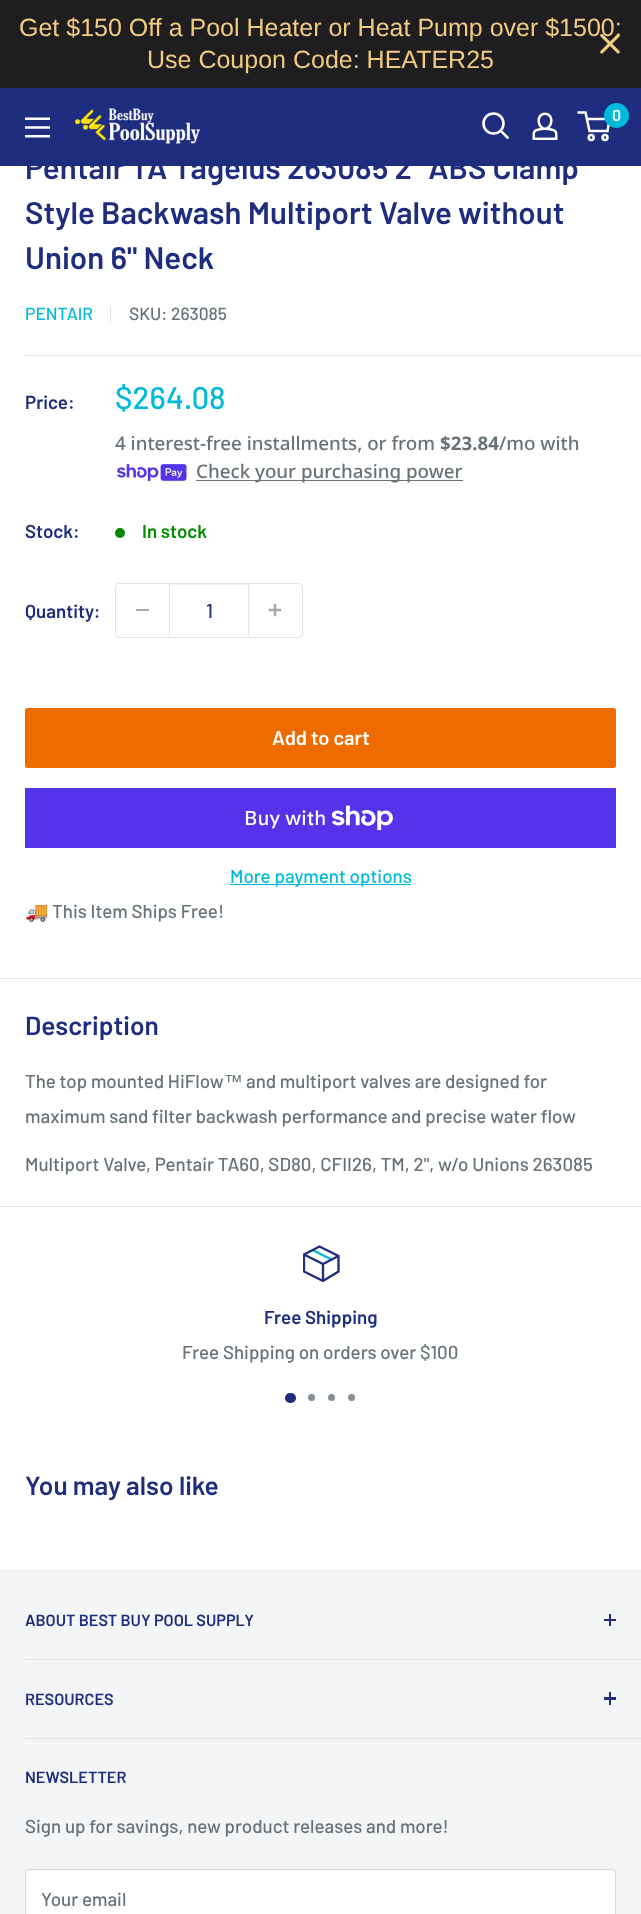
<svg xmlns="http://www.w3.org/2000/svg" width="641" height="1914">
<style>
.a{font:25px Liberation Sans;fill:#f2ca80}
.b{font:600 16px Barlow;fill:#fff}
.c{font:600 31.25px Barlow;fill:#1e2d7d}
.d{font:500 17.5px Barlow;fill:#00badb}
.e{font:500 17.5px Barlow;fill:#677279}
.f{font:600 18.75px Barlow;fill:#1e2d7d}
.g{font:500 31.25px Barlow;fill:#00badb}
.h{font:500 18.75px Noto Sans;fill:#677279}
.i{font:bold 18.75px Noto Sans;fill:#677279}
.j{font:600 18.75px Barlow;fill:#008a00}
.k{font:500 20px Barlow;fill:#1e2d7d}
.l{font:600 20px Barlow;fill:#fff}
.m{font:500 20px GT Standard;fill:#fff}
.n{font:500 18.75px Barlow;fill:#00badb}
.o{font:18.75px Noto Color Emoji;fill:#677279}
.p{font:500 18.75px Barlow;fill:#677279}
.q{font:600 26.25px Barlow;fill:#1e2d7d}
.r{font:18.75px Liberation Sans;fill:#677279}
.s{font:600 16.25px Barlow;fill:#1e2d7d}
</style>
<defs>
<clipPath id="clip1"><path d="M303 1245h37v38H303z"/></clipPath>
</defs>
<rect width="100%" height="100%" fill="#fff"/>
<path fill="#1e1e20" d="M0 0h641v88H0z"/>
<path fill="#1e2d7d" d="M0 88h641v78H0z"/>
<image href="2.png" x="75" y="108" width="125" height="36"/>
<path fill="none" stroke="#fff" stroke-width="2.6" stroke-linecap="square" d="M507.5 137.5l-6.5-6.5"/>
<circle fill="none" stroke="#fff" stroke-width="2.6" cx="493.5" cy="123.5" r="10"/>
<image href="3.png" x="532" y="112" width="26" height="28"/>
<circle fill="none" stroke="#fff" stroke-width="2.5" cx="591.2" cy="137.5" r="2.5"/>
<circle fill="none" stroke="#fff" stroke-width="2.5" cx="605" cy="137.5" r="2.5"/>
<path fill="none" stroke="#fff" stroke-width="2.5" d="M586.5 119h23l-2 12h-18l-4-18.5h-8"/>
<circle fill="#00badb" cx="616.5" cy="115.5" r="12.5"/>
<image href="4.png" x="25" y="117" width="25" height="21"/>
<path fill="#e1e3e4" d="M110 306h1v17H110z"/>
<path fill="#e1e3e4" d="M25 355h616v1H25z"/>
<image href="5.png" x="117" y="464" width="70" height="17"/>
<path fill="#677279" d="M196 480h267v1H196z"/>
<circle fill="#008a00" cx="120" cy="533" r="5"/>
<rect fill="none" stroke="#e1e3e4" x="115.5" y="583.5" width="187" height="54" rx="3.5"/>
<path fill="#a4aaaf" d="M136 609h13v2H136z"/>
<path fill="#f3f4f4" d="M170 584h78v1H170z"/>
<path fill="#e1e3e4" d="M248 584h1v52H248z"/>
<path fill="#e1e3e4" d="M169 584h1v52H169z"/>
<image href="6.png" x="268" y="603" width="14" height="14"/>
<rect fill="#ee6b00" x="25" y="708" width="591" height="60" rx="2.5"/>
<path fill="#5433eb" d="M25 788h591v60H25z"/>
<image href="7.png" x="331" y="805" width="62" height="25"/>
<path fill="#00badb" d="M230 884h181v1H230z"/>
<path fill="#e1e3e4" d="M0 978h641v1H0z"/>
<path fill="#e1e3e4" d="M0 1206h641v1H0z"/>
<path fill="none" stroke="#00badb" stroke-width="2.3" d="M312.5 1250l19 9.5"/>
<path fill="none" stroke="#1e2d7d" stroke-width="2.3" d="M338.5 1256l-15.5 8l-19-9.5m19 9.5v17"/>
<g clip-path="url(#clip1)">
<path fill="none" stroke="#1e2d7d" stroke-width="2.3" stroke-linecap="square" d="M338.5 1256v15.5l-15.5 9.5l-19-9.5v-17l15.5-8z"/>
</g>
<rect fill="#1e2d7d" x="285" y="1393" width="11" height="10" rx="5"/>
<circle fill="#858e94" cx="311.5" cy="1397.5" r="3.5"/>
<circle fill="#858e94" cx="331.5" cy="1397.5" r="3.5"/>
<circle fill="#858e94" cx="351.5" cy="1397.5" r="3.5"/>
<path fill="#f3f5f6" d="M0 1569h641v345H0z"/>
<path fill="#e1e3e4" d="M25 1659h616v1H25z"/>
<path fill="#1e2d7d" d="M609 1614h2v12H609z"/>
<path fill="#1e2d7d" d="M604 1619h12v2H604z"/>
<path fill="#e1e3e4" d="M25 1738h616v1H25z"/>
<path fill="#1e2d7d" d="M609 1692h2v13H609z"/>
<path fill="#1e2d7d" d="M604 1697h12v3H604z"/>
<rect fill="#fff" x="25" y="1869" width="591" height="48" rx="2.5"/>
<path fill="#f8f8f8" d="M28 1871h586l1 1c0-1 0-2-1-2h-587l-1 1v1z"/>
<rect fill="none" stroke="#d4d6d8" x="25.5" y="1869.5" width="590" height="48" rx="2"/>
<text class="a" x="19" y="36">Get $150 Off a Pool Heater or Heat Pump over $1500:</text>
<text class="a" x="147" y="68">Use Coupon Code: HEATER25</text>
<image href="1.png" x="600" y="33" width="20" height="21"/>
<text class="b" x="612" y="121">0</text>
<text class="c" x="25" y="179">Pentair TA Tagelus 263085 2" ABS Clamp</text>
<text class="c" x="25" y="224">Style Backwash Multiport Valve without</text>
<text class="c" x="25" y="269">Union 6" Neck</text>
<text class="d" x="25" y="320">PENTAIR</text>
<text class="e" x="129" y="320">SKU: 263085</text>
<text class="f" x="25" y="409">Price:</text>
<text class="g" x="115" y="409">$264.08</text>
<text class="h" x="115" y="450">4 interest-free installments, or from</text>
<text class="i" x="440" y="450">$23.84</text>
<text class="h" x="499" y="450">/mo with</text>
<text class="h" x="196" y="478">Check your purchasing power</text>
<text class="f" x="25" y="538">Stock:</text>
<text class="j" x="142" y="538">In stock</text>
<text class="f" x="25" y="618">Quantity:</text>
<text class="k" x="206" y="618">1</text>
<text class="l" x="272" y="745">Add to cart</text>
<text class="m" x="244" y="825">Buy with</text>
<text class="n" x="230" y="883">More payment options</text>
<text class="o" x="25" y="918">🚚</text>
<text class="p" x="52" y="918">This Item Ships Free!</text>
<text class="q" x="25" y="1035">Description</text>
<text class="p" x="25" y="1088">The top mounted HiFlow</text>
<text class="r" x="224" y="1088">™</text>
<text class="p" x="246" y="1088">and multiport valves are designed for</text>
<text class="p" x="25" y="1123">maximum sand filter backwash performance and precise water flow</text>
<text class="p" x="25" y="1171">Multiport Valve, Pentair TA60, SD80, CFII26, TM, 2", w/o Unions 263085</text>
<text class="f" x="264" y="1324">Free Shipping</text>
<text class="p" x="182" y="1359">Free Shipping on orders over $100</text>
<text class="q" x="25" y="1495">You may also like</text>
<text class="s" x="25" y="1626">ABOUT BEST BUY POOL SUPPLY</text>
<text class="s" x="25" y="1705">RESOURCES</text>
<text class="s" x="25" y="1783">NEWSLETTER</text>
<text class="p" x="25" y="1833">Sign up for savings, new product releases and more!</text>
<text class="p" x="41" y="1906">Your email</text>
</svg>
